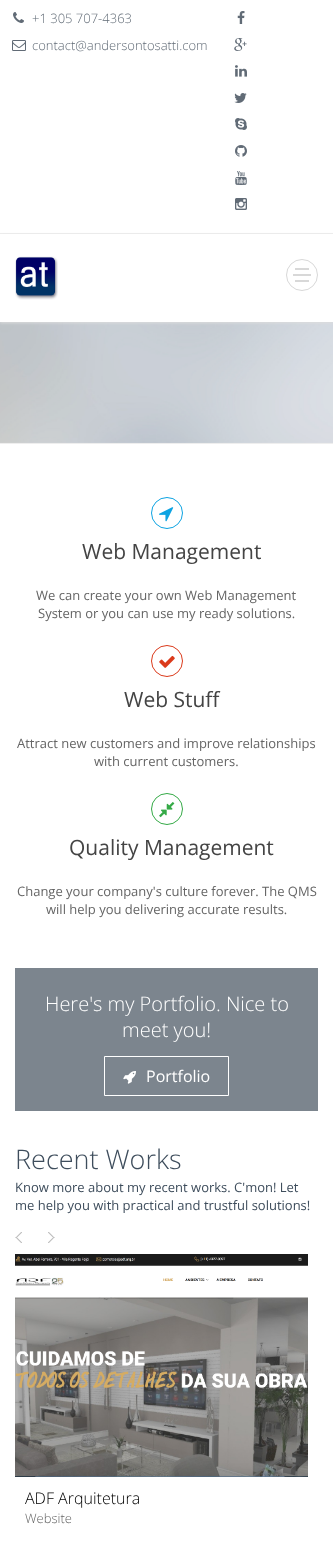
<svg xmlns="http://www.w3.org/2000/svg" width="333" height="1551">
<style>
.a{font:300 13px Open Sans;fill:#616b76}
.b{font:21px Open Sans;fill:#444}
.c{font:13px Open Sans;fill:#656565}
.d{font:300 20px Open Sans;fill:#fff}
.e{font:16px Open Sans;fill:#fff}
.f{font:300 27px Open Sans;fill:#3e4d5c}
.g{font:13px Open Sans;fill:#3e4d5c}
.h{font:300 16px Open Sans;fill:#000}
.i{font:300 13px Open Sans;fill:#656565}
</style>
<defs>
<clipPath id="clip1"><path d="M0 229h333v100h-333zm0 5h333v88h-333z" clip-rule="evenodd"/></clipPath>
</defs>
<rect width="100%" height="100%" fill="#fff"/>
<path fill="#eee" d="M0 233h333v1H0z"/>
<image href="1.png" x="13" y="12" width="11" height="11"/>
<image href="2.png" x="12" y="40" width="14" height="11"/>
<image href="3.png" x="237" y="11" width="8" height="13"/>
<image href="4.png" x="234" y="38" width="13" height="13"/>
<image href="5.png" x="235" y="65" width="12" height="12"/>
<image href="6.png" x="234" y="93" width="13" height="10"/>
<image href="7.png" x="235" y="118" width="12" height="12"/>
<image href="8.png" x="235" y="145" width="12" height="12"/>
<image href="9.png" x="235" y="171" width="12" height="14"/>
<image href="10.png" x="235" y="198" width="12" height="12"/>
<image href="13.png" x="0" y="322" width="333" height="121"/>
<g clip-path="url(#clip1)">
<path fill="#ddd" filter="blur(1.5px)" d="M0 235h333v88H0z"/>
</g>
<image href="11.png" x="15" y="256" width="43" height="44"/>
<image href="12.png" x="293" y="268" width="18" height="14"/>
<circle fill="none" stroke="#d8d8d8" cx="302" cy="275" r="15.5"/>
<path fill="#eee" d="M0 443h333v1H0z"/>
<circle fill="none" stroke="#0da3e2" cx="167" cy="513" r="15.5"/>
<image href="14.png" x="159" y="507" width="15" height="15"/>
<circle fill="none" stroke="#db3a1b" cx="167" cy="661" r="15.5"/>
<image href="15.png" x="159" y="655" width="16" height="13"/>
<circle fill="none" stroke="#35aa47" cx="167" cy="809" r="15.5"/>
<image href="16.png" x="159" y="802" width="16" height="16"/>
<path fill="#7c858e" d="M15 968h303v143H15z"/>
<path fill="none" stroke="#fff" d="M104.5 1056.5h124v39H104.5z"/>
<image href="17.png" x="123" y="1071" width="13" height="13"/>
<image href="18.png" x="15" y="1232" width="7" height="11"/>
<image href="19.png" x="48" y="1232" width="7" height="11"/>
<image href="20.png" x="15" y="1254" width="293" height="223"/>
<text class="a" x="32" y="23">+1 305 707-4363</text>
<text class="a" x="32" y="50">contact@andersontosatti.com</text>
<text class="b" x="82" y="559">Web Management</text>
<text class="c" x="36" y="600">We can create your own Web Management</text>
<text class="c" x="38" y="618">System or you can use my ready solutions.</text>
<text class="b" x="124" y="707">Web Stuff</text>
<text class="c" x="17" y="748">Attract new customers and improve relationships</text>
<text class="c" x="94" y="766">with current customers.</text>
<text class="b" x="69" y="855">Quality Management</text>
<text class="c" x="17" y="896">Change your company's culture forever. The QMS</text>
<text class="c" x="46" y="914">will help you delivering accurate results.</text>
<text class="d" x="45" y="1011">Here's my Portfolio. Nice to</text>
<text class="d" x="122" y="1037">meet you!</text>
<text class="e" x="146" y="1082">Portfolio</text>
<text class="f" x="15" y="1169">Recent Works</text>
<text class="g" x="15" y="1192">Know more about my recent works. C'mon! Let</text>
<text class="g" x="15" y="1210">me help you with practical and trustful solutions!</text>
<text class="h" x="25" y="1504">ADF Arquitetura</text>
<text class="i" x="25" y="1523">Website</text>
</svg>
